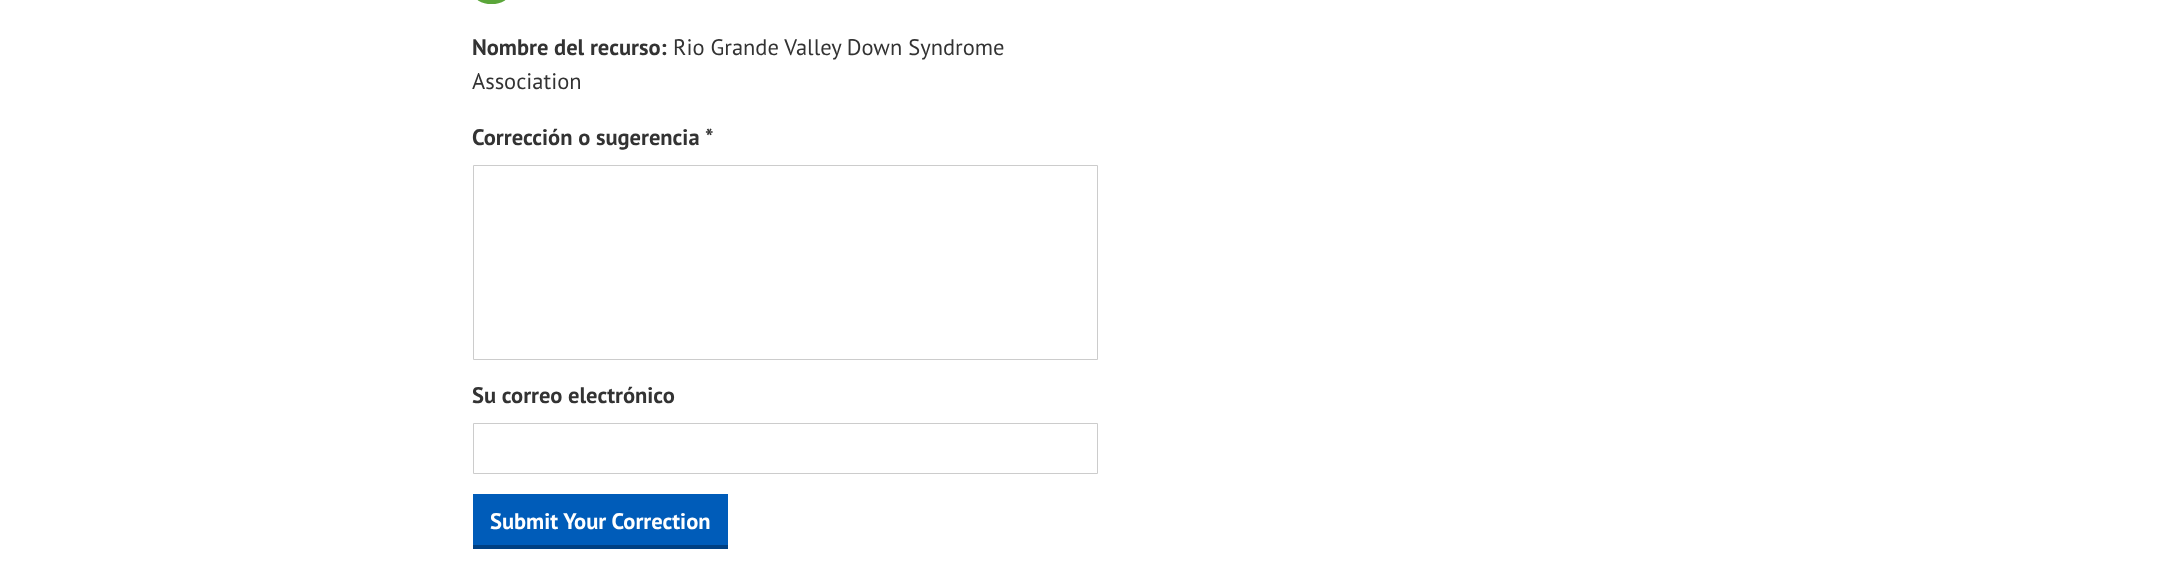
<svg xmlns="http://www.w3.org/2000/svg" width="2157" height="578">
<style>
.a{font:bold 22.5px PT Sans;fill:#333}
.b{font:22.5px PT Sans;fill:#333}
.c{font:bold 22.5px PT Sans;fill:#fff}
</style>
<rect width="100%" height="100%" fill="#fff"/>
<rect fill="#5ba63a" x="473" y="-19" width="37" height="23" rx="18.5"/>
<path fill="none" stroke="#ccc" d="M473.5 165.5h624v194H473.5z"/>
<path fill="none" stroke="#ccc" d="M473.5 423.5h624v50H473.5z"/>
<path fill="#005cb9" d="M473 494h255v51H473z"/>
<path fill="#004082" d="M473 545h255v4H473z"/>
<text class="a" x="472" y="55">Nombre del recurso:</text>
<text class="b" x="673" y="55">Rio Grande Valley Down Syndrome</text>
<text class="b" x="472" y="89">Association</text>
<text class="a" x="472" y="145">Corrección o sugerencia</text>
<text class="a" x="705" y="145">*</text>
<text class="a" x="472" y="403">Su correo electrónico</text>
<text class="c" x="490" y="529">Submit Your Correction</text>
</svg>
